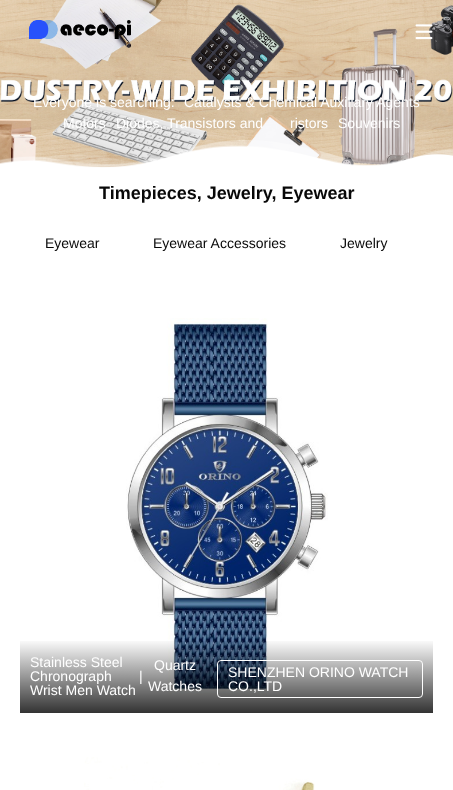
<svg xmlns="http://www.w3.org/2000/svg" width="453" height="790">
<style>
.a{font:14px Liberation Sans;fill:#fff}
.b{font:bold 18px Liberation Sans;fill:#080808}
.c{font:14px Liberation Sans;fill:#080808}
</style>
<defs>
<linearGradient id="g1" gradientUnits="userSpaceOnUse" x1="227" y1="639" x2="227" y2="713"><stop offset="0" stop-color="#000" stop-opacity="0"/><stop offset="1" stop-color="#000" stop-opacity="0.8"/></linearGradient>
</defs>
<rect width="100%" height="100%" fill="#fff"/>
<image href="1.png" x="0" y="0" width="453" height="168"/>
<image href="2.png" x="29" y="20" width="102" height="19"/>
<image href="3.png" x="415" y="24" width="18" height="16"/>
<image href="4.png" x="0" y="140" width="453" height="40"/>
<image href="5.png" x="126" y="318" width="202" height="377"/>
<path fill="url(#g1)" d="M20 641h413v72H20z"/>
<rect fill="none" stroke="#fff" x="217.5" y="660.5" width="205" height="37" rx="3.5"/>
<image href="6.png" x="84" y="757" width="231" height="33"/>
<text class="a" x="33" y="107">Everyone is searching:</text>
<text class="a" x="184" y="107">Catalysts &amp; Chemical Auxiliary Agents</text>
<text class="a" x="63" y="128">Motors</text>
<text class="a" x="116" y="128">Diodes, Transistors and</text>
<text class="a" x="290" y="128">ristors</text>
<text class="a" x="338" y="128">Souvenirs</text>
<text class="b" x="99" y="199">Timepieces, Jewelry, Eyewear</text>
<text class="c" x="45" y="248">Eyewear</text>
<text class="c" x="153" y="248">Eyewear Accessories</text>
<text class="c" x="340" y="248">Jewelry</text>
<text class="a" x="30" y="667">Stainless Steel</text>
<text class="a" x="30" y="681">Chronograph</text>
<text class="a" x="30" y="695">Wrist Men Watch</text>
<text class="a" x="139" y="681">|</text>
<text class="a" x="154" y="670">Quartz</text>
<text class="a" x="148" y="691">Watches</text>
<text class="a" x="228" y="677">SHENZHEN ORINO WATCH</text>
<text class="a" x="228" y="691">CO.,LTD</text>
</svg>
